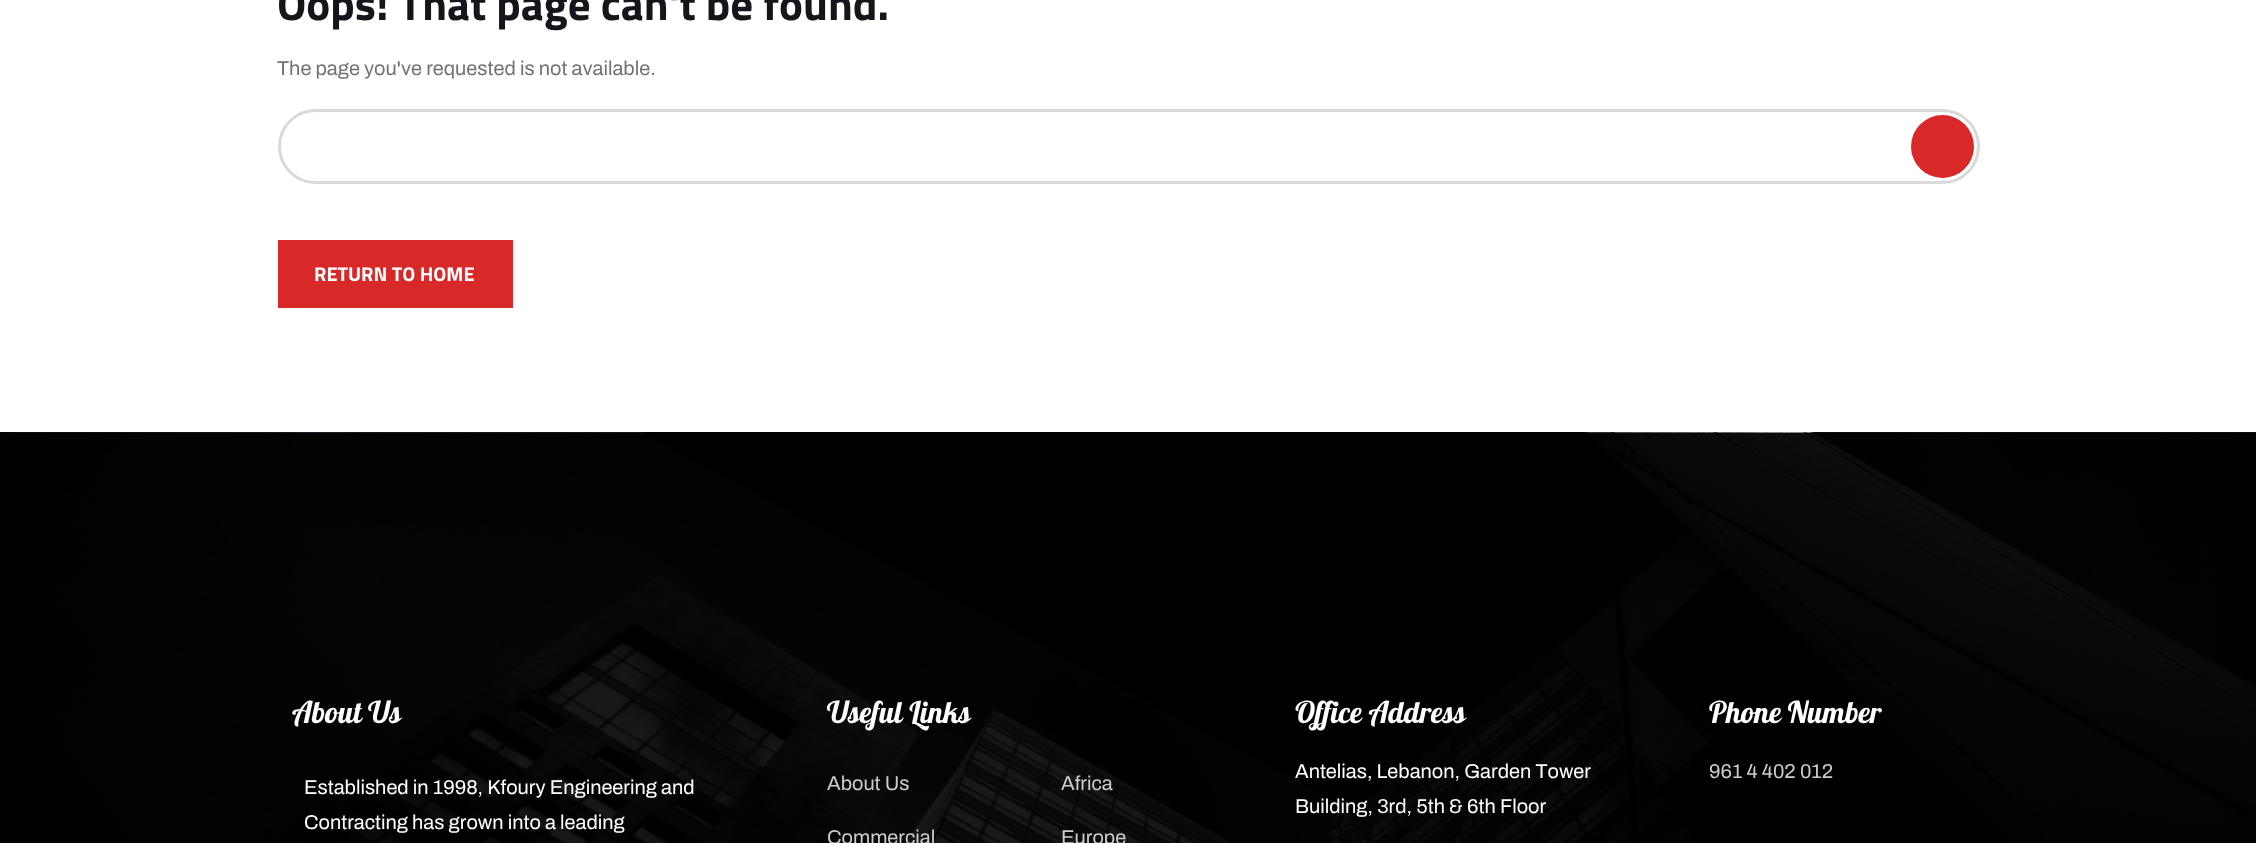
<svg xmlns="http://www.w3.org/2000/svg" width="2256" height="843">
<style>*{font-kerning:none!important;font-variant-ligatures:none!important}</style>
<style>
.a{font:bold 45px Titillium Web;fill:#15161c}
.b{font:20px Archivo;fill:#737373}
.c{font:bold 20px Titillium Web;fill:#fff}
.d{font:30px Lobster;fill:#fff}
.e{font:20px Archivo;fill:#fff}
.f{font:20px Archivo;fill:#cbcccd}
</style>
<rect width="100%" height="100%" fill="#fff"/>
<rect fill="none" stroke="#d9d9d9" stroke-width="3" x="279.5" y="110.5" width="1699" height="72" rx="36"/>
<circle fill="#d92828" cx="1942.5" cy="146.5" r="31.5"/>
<path fill="#d92828" d="M278 240h235v68H278z"/>
<image href="1.png" x="0" y="432" width="2256" height="411"/>
<text class="a" x="277" y="20">Oops! That page can't be found.</text>
<text class="b" x="277" y="75">The page you've requested is not available.</text>
<text class="c" x="314" y="281">RETURN TO HOME</text>
<text class="d" x="292" y="723">About Us</text>
<text class="e" x="304" y="794">Established in 1998, Kfoury Engineering and</text>
<text class="e" x="304" y="829">Contracting has grown into a leading</text>
<text class="d" x="827" y="723">Useful Links</text>
<text class="f" x="827" y="790">About Us</text>
<text class="f" x="827" y="844">Commercial</text>
<text class="f" x="1061" y="790">Africa</text>
<text class="f" x="1061" y="844">Europe</text>
<text class="d" x="1295" y="723">Office Address</text>
<text class="e" x="1295" y="778">Antelias, Lebanon, Garden Tower</text>
<text class="e" x="1295" y="813">Building, 3rd, 5th &amp; 6th Floor</text>
<text class="d" x="1709" y="723">Phone Number</text>
<text class="f" x="1709" y="778">961 4 402 012</text>
</svg>
